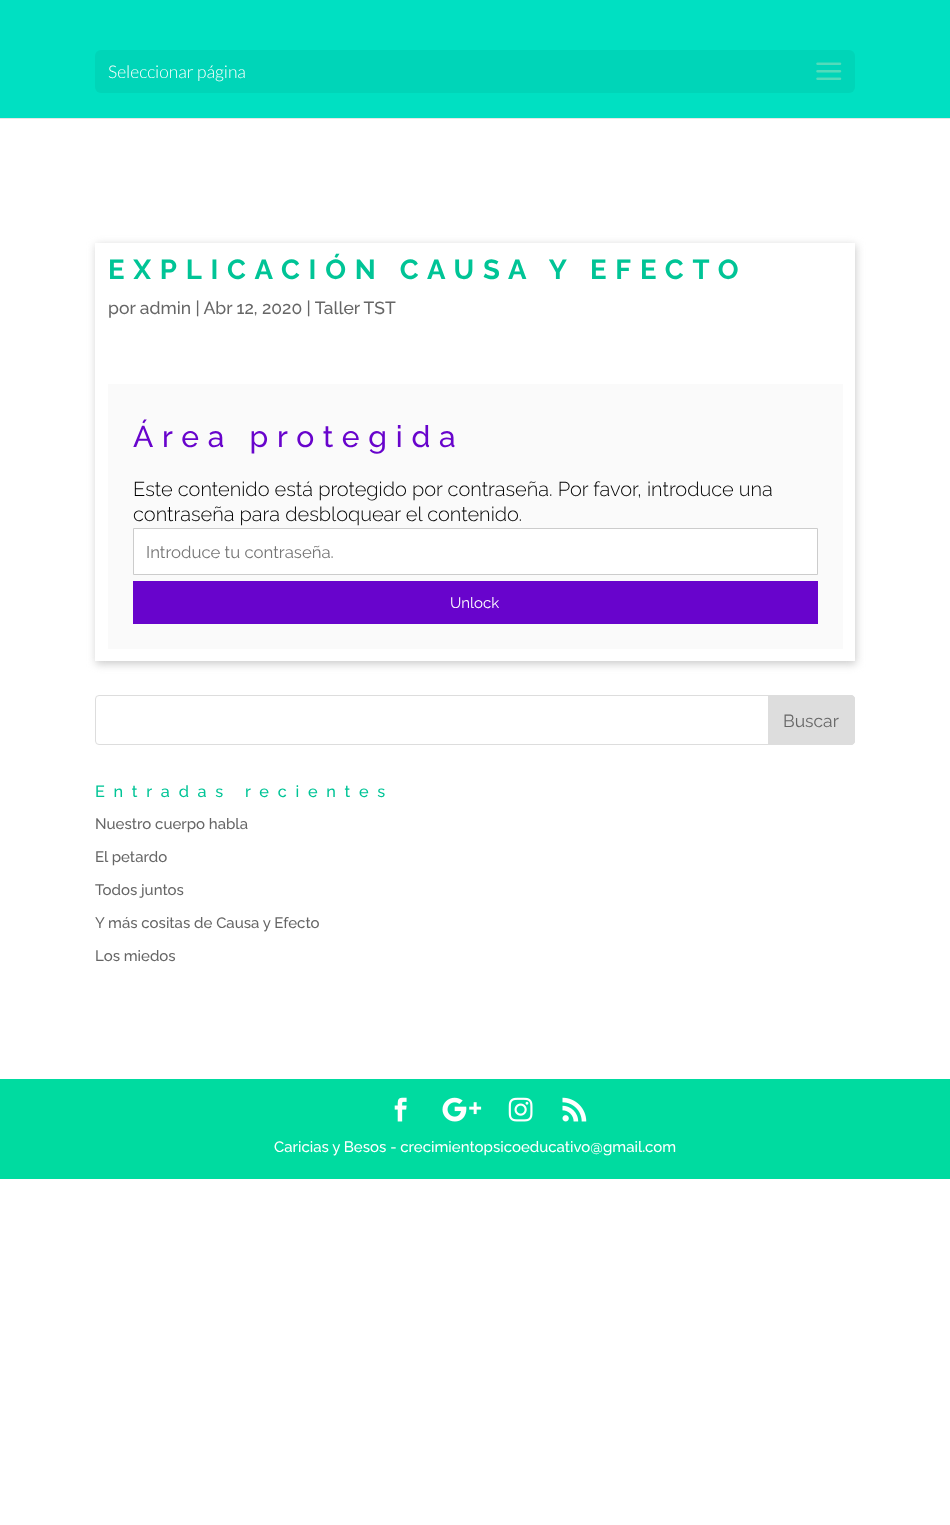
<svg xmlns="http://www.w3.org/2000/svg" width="950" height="1525">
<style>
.a{font:300 17.5px Lato;fill:#fff}
.b{font:bold 27.5px Raleway;letter-spacing:8.75px;fill:#00c496}
.c{font:500 17.5px Raleway;fill:#666}
.d{font:500 30px Raleway;letter-spacing:8.75px;fill:#6804cc}
.e{font:300 20px Raleway;fill:#000}
.f{font:16.75px Raleway;fill:#757575}
.g{font:15px Raleway;fill:#fff}
.h{font:17.5px Raleway;fill:#666}
.i{font:500 16.25px Raleway;letter-spacing:8.75px;fill:#00c496}
.j{font:500 15px Raleway;fill:#666}
.k{font:500 15px Raleway;fill:#fff}
</style>
<defs>
<clipPath id="clip1"><path d="M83 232h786v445h-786zm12 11h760v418h-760z" clip-rule="evenodd"/></clipPath>
</defs>
<rect width="100%" height="100%" fill="#fff"/>
<path fill="#e6e6e6" d="M0 118h950v1H0z"/>
<path fill="#00e0c2" d="M0 0h950v118H0z"/>
<rect fill="#00d5b8" x="95" y="50" width="760" height="43" rx="6"/>
<image href="1.png" x="816" y="62" width="26" height="18"/>
<g clip-path="url(#clip1)">
<path fill="#ccc" filter="blur(4px)" d="M96 245h760v419H96z"/>
</g>
<path fill="#fafafa" d="M108 384h735v265H108z"/>
<path fill="#fff" stroke="#ccc" d="M133.5 528.5h684v46H133.5z"/>
<path fill="#6804cc" d="M133 581h685v43H133z"/>
<rect fill="none" stroke="#ddd" x="95.5" y="695.5" width="759" height="49" rx="3.5"/>
<path fill="#ddd" stroke="#ddd" d="M768.5 695.5h82.5c2 0 3.5 1.5 3.5 3.5v42c0 2-1.5 3.5-3.5 3.5h-82.5z"/>
<path fill="#00dba0" d="M0 1079h950v100H0z"/>
<image href="2.png" x="394" y="1097" width="13" height="25"/>
<image href="3.png" x="442" y="1097" width="40" height="25"/>
<image href="4.png" x="508" y="1097" width="25" height="25"/>
<image href="5.png" x="562" y="1097" width="25" height="25"/>
<text class="a" x="108" y="78">Seleccionar página</text>
<text class="b" x="108" y="279">EXPLICACIÓN CAUSA Y EFECTO</text>
<text class="c" x="108" y="314">por admin | Abr 12, 2020 | Taller TST</text>
<text class="d" x="133" y="447">Área protegida</text>
<text class="e" x="133" y="496">Este contenido está protegido por contraseña. Por favor, introduce una</text>
<text class="e" x="133" y="521">contraseña para desbloquear el contenido.</text>
<text class="f" x="146" y="558">Introduce tu contraseña.</text>
<text class="g" x="450" y="608">Unlock</text>
<text class="h" x="783" y="727">Buscar</text>
<text class="i" x="95" y="797">Entradas recientes</text>
<text class="j" x="95" y="829">Nuestro cuerpo habla</text>
<text class="j" x="95" y="862">El petardo</text>
<text class="j" x="95" y="895">Todos juntos</text>
<text class="j" x="95" y="928">Y más cositas de Causa y Efecto</text>
<text class="j" x="95" y="961">Los miedos</text>
<text class="k" x="274" y="1152">Caricias y Besos - crecimientopsicoeducativo@gmail.com</text>
</svg>
